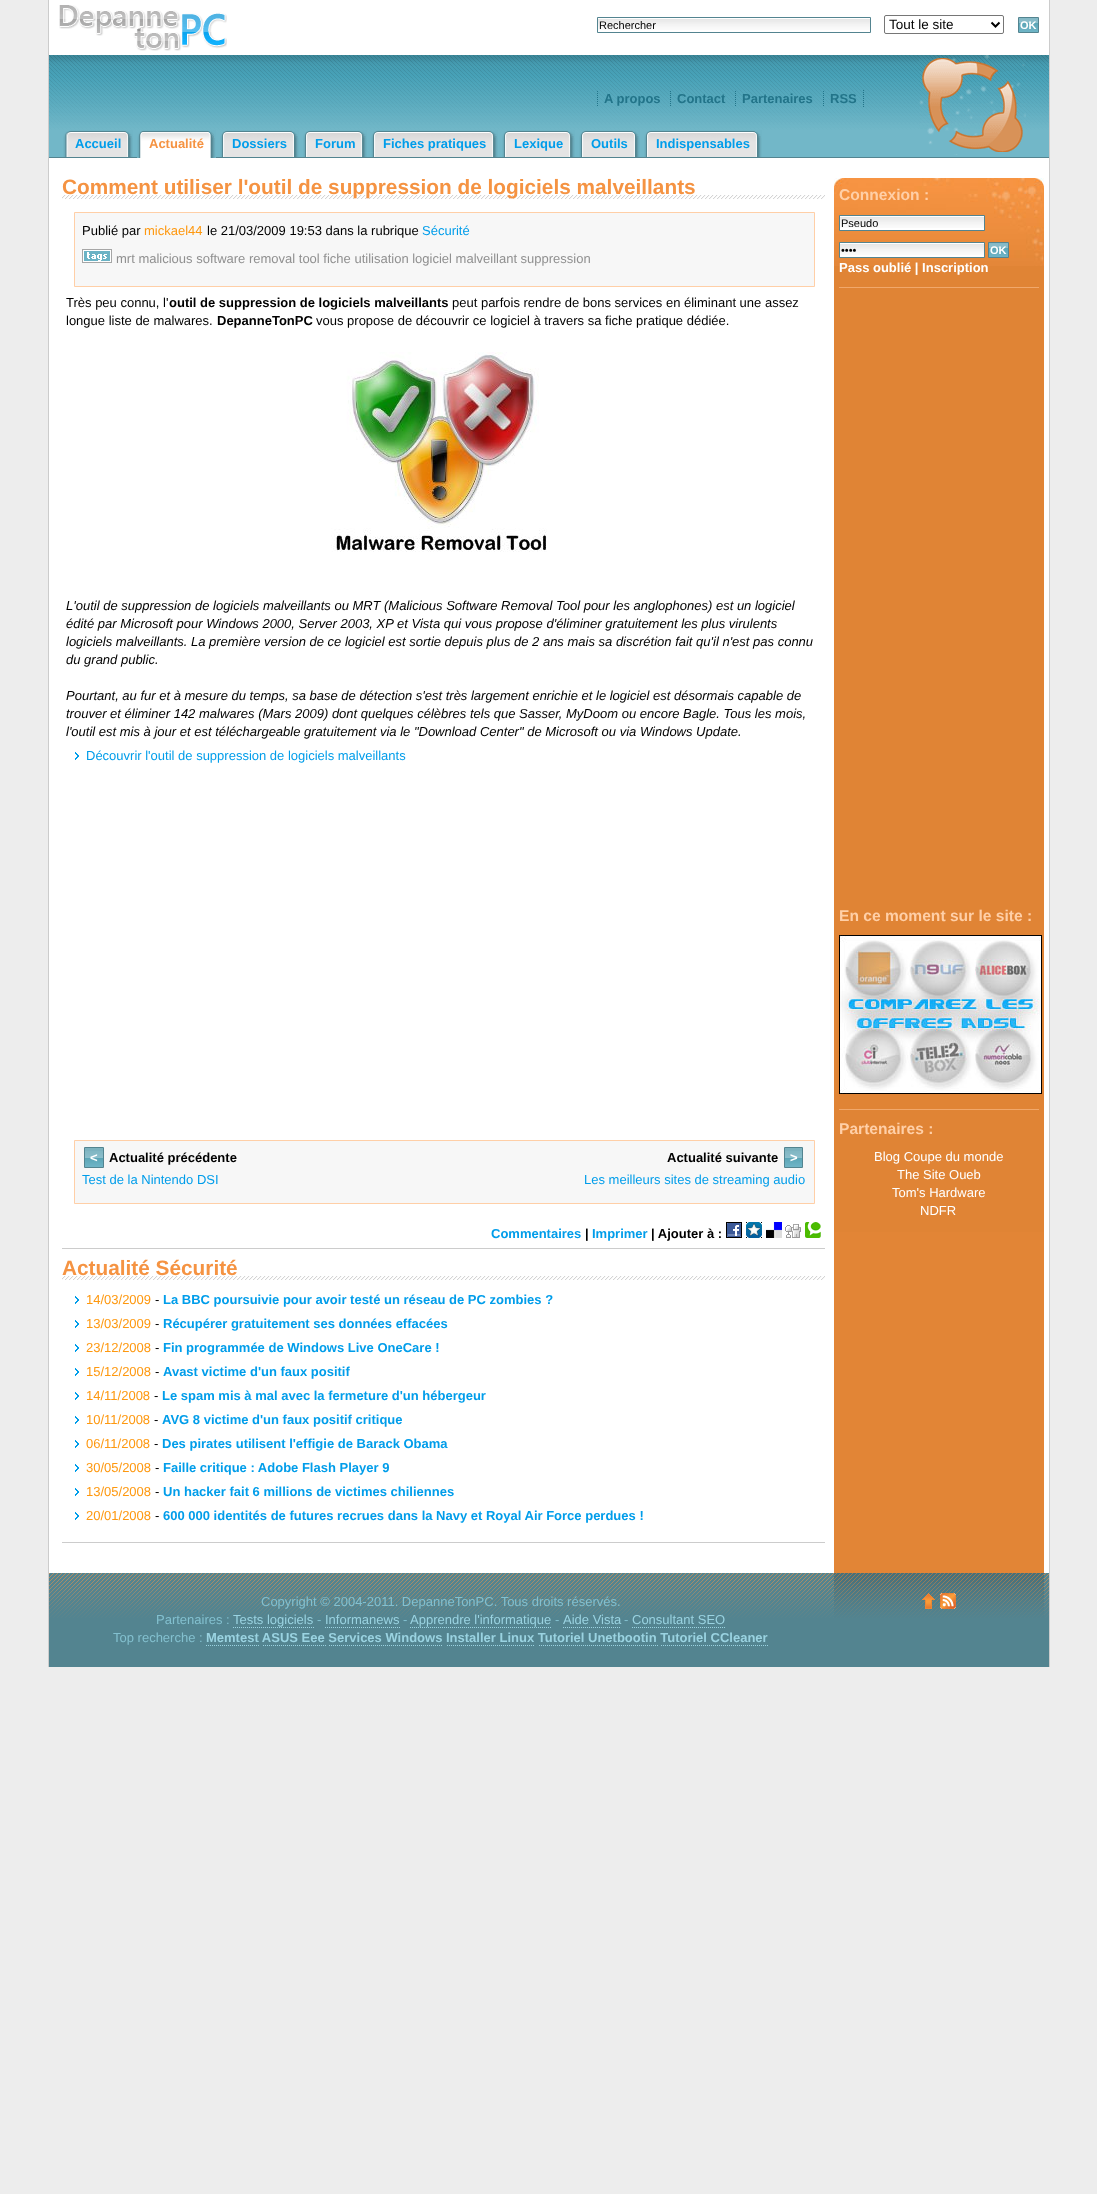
<svg xmlns="http://www.w3.org/2000/svg" width="1097" height="2194">
<style>
.a{font:11px Liberation Sans;fill:#000}
.b{font:13.5px Liberation Sans;fill:#000}
.c{font:bold 11px Liberation Sans;fill:#fff}
.d{font:bold 13px Liberation Sans;fill:#227489}
.e{font:bold 13px Liberation Sans;fill:#009dea}
.f{font:bold 13px Liberation Sans;fill:#f59342}
.g{font:bold 20.8px Liberation Sans;fill:#f59342}
.h{font:13px Liberation Sans;fill:#000}
.i{font:13px Liberation Sans;fill:#fe980f}
.j{font:13px Liberation Sans;fill:#009dea}
.k{font:13px Liberation Sans;fill:#909090}
.l{font:bold 13px Liberation Sans;fill:#000}
.m{font:italic 13px Liberation Sans;fill:#000}
.n{font:bold 13px Liberation Sans;fill:#fff}
.o{font:bold 15.6px Liberation Sans;fill:#ffcfa7}
.p{font:13px Liberation Sans;fill:#fff}
.q{font:13px Liberation Sans;fill:#83c0cf}
.r{font:13px Liberation Sans;fill:#9ad3e1}
.s{font:bold 13px Liberation Sans;fill:#9ad3e1}
</style>
<rect width="100%" height="100%" fill="#ededed"/>
<path fill="#fff" d="M49 0h1000v1573H49z"/>
<path fill="#ccc" d="M1049 0h1v1667H1049z"/>
<path fill="#ccc" d="M48 0h1v1667H48z"/>
<image href="1.png" x="59" y="5" width="168" height="46"/>
<image href="2.png" x="598" y="19" width="272" height="11"/>
<path fill="none" stroke="#538490" d="M597.5 17.5h273v15H597.5z"/>
<rect fill="none" stroke="#767676" x="884.5" y="15.5" width="119" height="18" rx="1.5"/>
<path fill="none" stroke="#000" stroke-width="2" d="M991.5 22.5l4 4l4-4"/>
<image href="3.png" x="1019" y="18" width="19" height="14"/>
<path fill="none" stroke="#538490" d="M1018.5 17.5h20v15H1018.5z"/>
<image href="4.png" x="49" y="55" width="1000" height="75"/>
<path fill="none" stroke="#227489" stroke-dasharray="1 1" d="M863.5 90v18"/>
<path fill="none" stroke="#227489" stroke-dasharray="1 1" d="M597.5 91v15"/>
<path fill="none" stroke="#227489" stroke-dasharray="1 1" d="M670.5 91v15"/>
<path fill="none" stroke="#227489" stroke-dasharray="1 1" d="M735.5 91v15"/>
<path fill="none" stroke="#227489" stroke-dasharray="1 1" d="M823.5 91v15"/>
<path fill="#72b7c8" d="M49 130h1000v27H49z"/>
<image href="5.png" x="919" y="55" width="107" height="100"/>
<path fill="#538490" d="M49 157h1000v1H49z"/>
<image href="6.png" x="71" y="130" width="62" height="27"/>
<image href="7.png" x="63" y="130" width="8" height="27"/>
<image href="8.png" x="143" y="130" width="73" height="28"/>
<image href="9.png" x="137" y="130" width="6" height="28"/>
<image href="10.png" x="227" y="130" width="72" height="27"/>
<image href="11.png" x="220" y="130" width="7" height="27"/>
<image href="12.png" x="310" y="130" width="57" height="27"/>
<image href="11.png" x="303" y="130" width="7" height="27"/>
<image href="13.png" x="378" y="130" width="120" height="27"/>
<image href="11.png" x="371" y="130" width="7" height="27"/>
<image href="14.png" x="509" y="130" width="66" height="27"/>
<image href="11.png" x="502" y="130" width="7" height="27"/>
<image href="15.png" x="586" y="130" width="54" height="27"/>
<image href="11.png" x="579" y="130" width="7" height="27"/>
<image href="16.png" x="651" y="130" width="111" height="27"/>
<image href="11.png" x="644" y="130" width="7" height="27"/>
<path fill="#e28536" d="M834 1232h210v341H834z"/>
<image href="17.png" x="62" y="195" width="763" height="4"/>
<path fill="#ccc" d="M62 1248h763v1H62z"/>
<path fill="#f7f7f7" stroke="#ffcfa7" d="M74.5 212.5h740v74H74.5z"/>
<image href="18.png" x="82" y="249" width="30" height="14"/>
<image href="19.png" x="331" y="352" width="216" height="200"/>
<image href="20.png" x="75" y="752" width="4" height="8"/>
<path fill="#f7f7f7" stroke="#ffcfa7" d="M74.5 1140.5h740v63H74.5z"/>
<image href="21.png" x="85" y="1151" width="18" height="16"/>
<path fill="#7cb2bf" d="M85 1148h18v3H85z"/>
<path fill="none" stroke="#538490" d="M84.5 1147.5h19v20H84.5z"/>
<image href="22.png" x="785" y="1151" width="17" height="16"/>
<path fill="#7cb2bf" d="M785 1148h17v3H785z"/>
<path fill="none" stroke="#538490" d="M784.5 1147.5h18v20H784.5z"/>
<image href="23.png" x="726" y="1222" width="16" height="16"/>
<image href="24.png" x="746" y="1222" width="16" height="16"/>
<image href="25.png" x="766" y="1222" width="16" height="16"/>
<image href="26.png" x="785" y="1224" width="16" height="14"/>
<image href="27.png" x="805" y="1222" width="16" height="16"/>
<image href="17.png" x="62" y="1276" width="763" height="4"/>
<path fill="#ccc" d="M62 1542h763v1H62z"/>
<image href="20.png" x="75" y="1296" width="4" height="8"/>
<image href="20.png" x="75" y="1320" width="4" height="8"/>
<image href="20.png" x="75" y="1344" width="4" height="8"/>
<image href="20.png" x="75" y="1368" width="4" height="8"/>
<image href="20.png" x="75" y="1392" width="4" height="8"/>
<image href="20.png" x="75" y="1416" width="4" height="8"/>
<image href="20.png" x="75" y="1440" width="4" height="8"/>
<image href="20.png" x="75" y="1464" width="4" height="8"/>
<image href="20.png" x="75" y="1488" width="4" height="8"/>
<image href="20.png" x="75" y="1512" width="4" height="8"/>
<path fill="#e08435" d="M834 266h210v966H834z"/>
<image href="28.png" x="834" y="178" width="210" height="88"/>
<path fill="#fff" d="M840 216h144v14H840z"/>
<image href="29.png" x="840" y="217" width="144" height="11"/>
<path fill="none" stroke="#538490" d="M839.5 215.5h145v15H839.5z"/>
<path fill="#fff" d="M840 243h144v14H840z"/>
<image href="29.png" x="840" y="244" width="144" height="11"/>
<path fill="none" stroke="#538490" d="M839.5 242.5h145v15H839.5z"/>
<image href="3.png" x="989" y="243" width="19" height="14"/>
<path fill="none" stroke="#538490" d="M988.5 242.5h20v15H988.5z"/>
<path fill="#f1a86b" d="M839 287h200v1H839z"/>
<image href="30.png" x="839" y="935" width="203" height="159"/>
<path fill="#f1a86b" d="M839 1109h200v1H839z"/>
<path fill="#538490" d="M49 1618h1000v49H49z"/>
<image href="31.png" x="49" y="1573" width="1000" height="45"/>
<path fill="none" stroke="#9ad3e1" stroke-dasharray="1 1" d="M233 1627.5h81"/>
<path fill="none" stroke="#9ad3e1" stroke-dasharray="1 1" d="M325 1627.5h75"/>
<path fill="none" stroke="#9ad3e1" stroke-dasharray="1 1" d="M410 1627.5h142"/>
<path fill="none" stroke="#9ad3e1" stroke-dasharray="1 1" d="M563 1627.5h58"/>
<path fill="none" stroke="#9ad3e1" stroke-dasharray="1 1" d="M632 1627.5h94"/>
<path fill="none" stroke="#9ad3e1" stroke-dasharray="1 1" d="M206 1645.5h53"/>
<path fill="none" stroke="#9ad3e1" stroke-dasharray="1 1" d="M263 1645.5h63"/>
<path fill="none" stroke="#9ad3e1" stroke-dasharray="1 1" d="M329 1645.5h114"/>
<path fill="none" stroke="#9ad3e1" stroke-dasharray="1 1" d="M447 1645.5h88"/>
<path fill="none" stroke="#9ad3e1" stroke-dasharray="1 1" d="M539 1645.5h119"/>
<path fill="none" stroke="#9ad3e1" stroke-dasharray="1 1" d="M661 1645.5h108"/>
<image href="32.png" x="834" y="1573" width="210" height="45"/>
<image href="33.png" x="922" y="1593" width="13" height="16"/>
<image href="34.png" x="940" y="1593" width="16" height="16"/>
<text class="a" x="599" y="29">Rechercher</text>
<text class="b" x="889" y="29">Tout le site</text>
<text class="c" x="1020" y="29">OK</text>
<text class="d" x="604" y="103">A propos</text>
<text class="d" x="677" y="103">Contact</text>
<text class="d" x="742" y="103">Partenaires</text>
<text class="d" x="830" y="103">RSS</text>
<text class="e" x="75" y="148">Accueil</text>
<text class="f" x="149" y="148">Actualité</text>
<text class="e" x="232" y="148">Dossiers</text>
<text class="e" x="315" y="148">Forum</text>
<text class="e" x="383" y="148">Fiches pratiques</text>
<text class="e" x="514" y="148">Lexique</text>
<text class="e" x="591" y="148">Outils</text>
<text class="e" x="656" y="148">Indispensables</text>
<text class="g" x="62" y="194">Comment utiliser l'outil de suppression de logiciels malveillants</text>
<text class="h" x="82" y="235">Publié par</text>
<text class="i" x="144" y="235">mickael44</text>
<text class="h" x="207" y="235">le 21/03/2009 19:53 dans la rubrique</text>
<text class="j" x="422" y="235">Sécurité</text>
<text class="k" x="116" y="263">mrt malicious software removal tool fiche utilisation logiciel malveillant suppression</text>
<text class="h" x="66" y="307">Très peu connu, l'</text>
<text class="l" x="169" y="307">outil de suppression de logiciels malveillants</text>
<text class="h" x="452" y="307">peut parfois rendre de bons services en éliminant une assez</text>
<text class="h" x="66" y="325">longue liste de malwares.</text>
<text class="l" x="217" y="325">DepanneTonPC</text>
<text class="h" x="316" y="325">vous propose de découvrir ce logiciel à travers sa fiche pratique dédiée.</text>
<text class="m" x="66" y="610">L'outil de suppression de logiciels malveillants ou MRT (Malicious Software Removal Tool pour les anglophones) est un logiciel</text>
<text class="m" x="66" y="628">édité par Microsoft pour Windows 2000, Server 2003, XP et Vista qui vous propose d'éliminer gratuitement les plus virulents</text>
<text class="m" x="66" y="646">logiciels malveillants. La première version de ce logiciel est sortie depuis plus de 2 ans mais sa discrétion fait qu'il n'est pas connu</text>
<text class="m" x="66" y="664">du grand public.</text>
<text class="m" x="66" y="700">Pourtant, au fur et à mesure du temps, sa base de détection s'est très largement enrichie et le logiciel est désormais capable de</text>
<text class="m" x="66" y="718">trouver et éliminer 142 malwares (Mars 2009) dont quelques célèbres tels que Sasser, MyDoom ou encore Bagle. Tous les mois,</text>
<text class="m" x="66" y="736">l'outil est mis à jour et est téléchargeable gratuitement via le "Download Center" de Microsoft ou via Windows Update.</text>
<text class="j" x="86" y="760">Découvrir l'outil de suppression de logiciels malveillants</text>
<text class="l" x="109" y="1162">Actualité précédente</text>
<text class="n" x="90" y="1162">&lt;</text>
<text class="j" x="82" y="1184">Test de la Nintendo DSI</text>
<text class="l" x="667" y="1162">Actualité suivante</text>
<text class="n" x="790" y="1162">&gt;</text>
<text class="j" x="584" y="1184">Les meilleurs sites de streaming audio</text>
<text class="e" x="491" y="1238">Commentaires</text>
<text class="l" x="585" y="1238">|</text>
<text class="e" x="592" y="1238">Imprimer</text>
<text class="l" x="651" y="1238">| Ajouter à :</text>
<text class="g" x="62" y="1275">Actualité Sécurité</text>
<text class="i" x="86" y="1304">14/03/2009</text>
<text class="h" x="155" y="1304">-</text>
<text class="e" x="163" y="1304">La BBC poursuivie pour avoir testé un réseau de PC zombies ?</text>
<text class="i" x="86" y="1328">13/03/2009</text>
<text class="h" x="155" y="1328">-</text>
<text class="e" x="163" y="1328">Récupérer gratuitement ses données effacées</text>
<text class="i" x="86" y="1352">23/12/2008</text>
<text class="h" x="155" y="1352">-</text>
<text class="e" x="163" y="1352">Fin programmée de Windows Live OneCare !</text>
<text class="i" x="86" y="1376">15/12/2008</text>
<text class="h" x="155" y="1376">-</text>
<text class="e" x="163" y="1376">Avast victime d'un faux positif</text>
<text class="i" x="86" y="1400">14/11/2008</text>
<text class="h" x="154" y="1400">-</text>
<text class="e" x="162" y="1400">Le spam mis à mal avec la fermeture d'un hébergeur</text>
<text class="i" x="86" y="1424">10/11/2008</text>
<text class="h" x="154" y="1424">-</text>
<text class="e" x="162" y="1424">AVG 8 victime d'un faux positif critique</text>
<text class="i" x="86" y="1448">06/11/2008</text>
<text class="h" x="154" y="1448">-</text>
<text class="e" x="162" y="1448">Des pirates utilisent l'effigie de Barack Obama</text>
<text class="i" x="86" y="1472">30/05/2008</text>
<text class="h" x="155" y="1472">-</text>
<text class="e" x="163" y="1472">Faille critique : Adobe Flash Player 9</text>
<text class="i" x="86" y="1496">13/05/2008</text>
<text class="h" x="155" y="1496">-</text>
<text class="e" x="163" y="1496">Un hacker fait 6 millions de victimes chiliennes</text>
<text class="i" x="86" y="1520">20/01/2008</text>
<text class="h" x="155" y="1520">-</text>
<text class="e" x="163" y="1520">600 000 identités de futures recrues dans la Navy et Royal Air Force perdues !</text>
<text class="o" x="839" y="200">Connexion :</text>
<text class="a" x="841" y="227">Pseudo</text>
<text class="a" x="841" y="254">••••</text>
<text class="c" x="990" y="254">OK</text>
<text class="n" x="839" y="272">Pass oublié | Inscription</text>
<text class="o" x="839" y="921">En ce moment sur le site :</text>
<text class="o" x="839" y="1134">Partenaires :</text>
<text class="p" x="874" y="1161">Blog Coupe du monde</text>
<text class="p" x="897" y="1179">The Site Oueb</text>
<text class="p" x="892" y="1197">Tom's Hardware</text>
<text class="p" x="920" y="1215">NDFR</text>
<text class="q" x="261" y="1606">Copyright © 2004-2011. DepanneTonPC. Tous droits réservés.</text>
<text class="q" x="156" y="1624">Partenaires :</text>
<text class="r" x="233" y="1624">Tests logiciels</text>
<text class="q" x="317" y="1624">-</text>
<text class="r" x="325" y="1624">Informanews</text>
<text class="q" x="403" y="1624">-</text>
<text class="r" x="410" y="1624">Apprendre l'informatique</text>
<text class="q" x="555" y="1624">-</text>
<text class="r" x="563" y="1624">Aide Vista</text>
<text class="q" x="624" y="1624">-</text>
<text class="r" x="632" y="1624">Consultant SEO</text>
<text class="q" x="113" y="1642">Top recherche :</text>
<text class="s" x="206" y="1642">Memtest ASUS Eee Services Windows Installer Linux Tutoriel Unetbootin Tutoriel CCleaner</text>
</svg>
